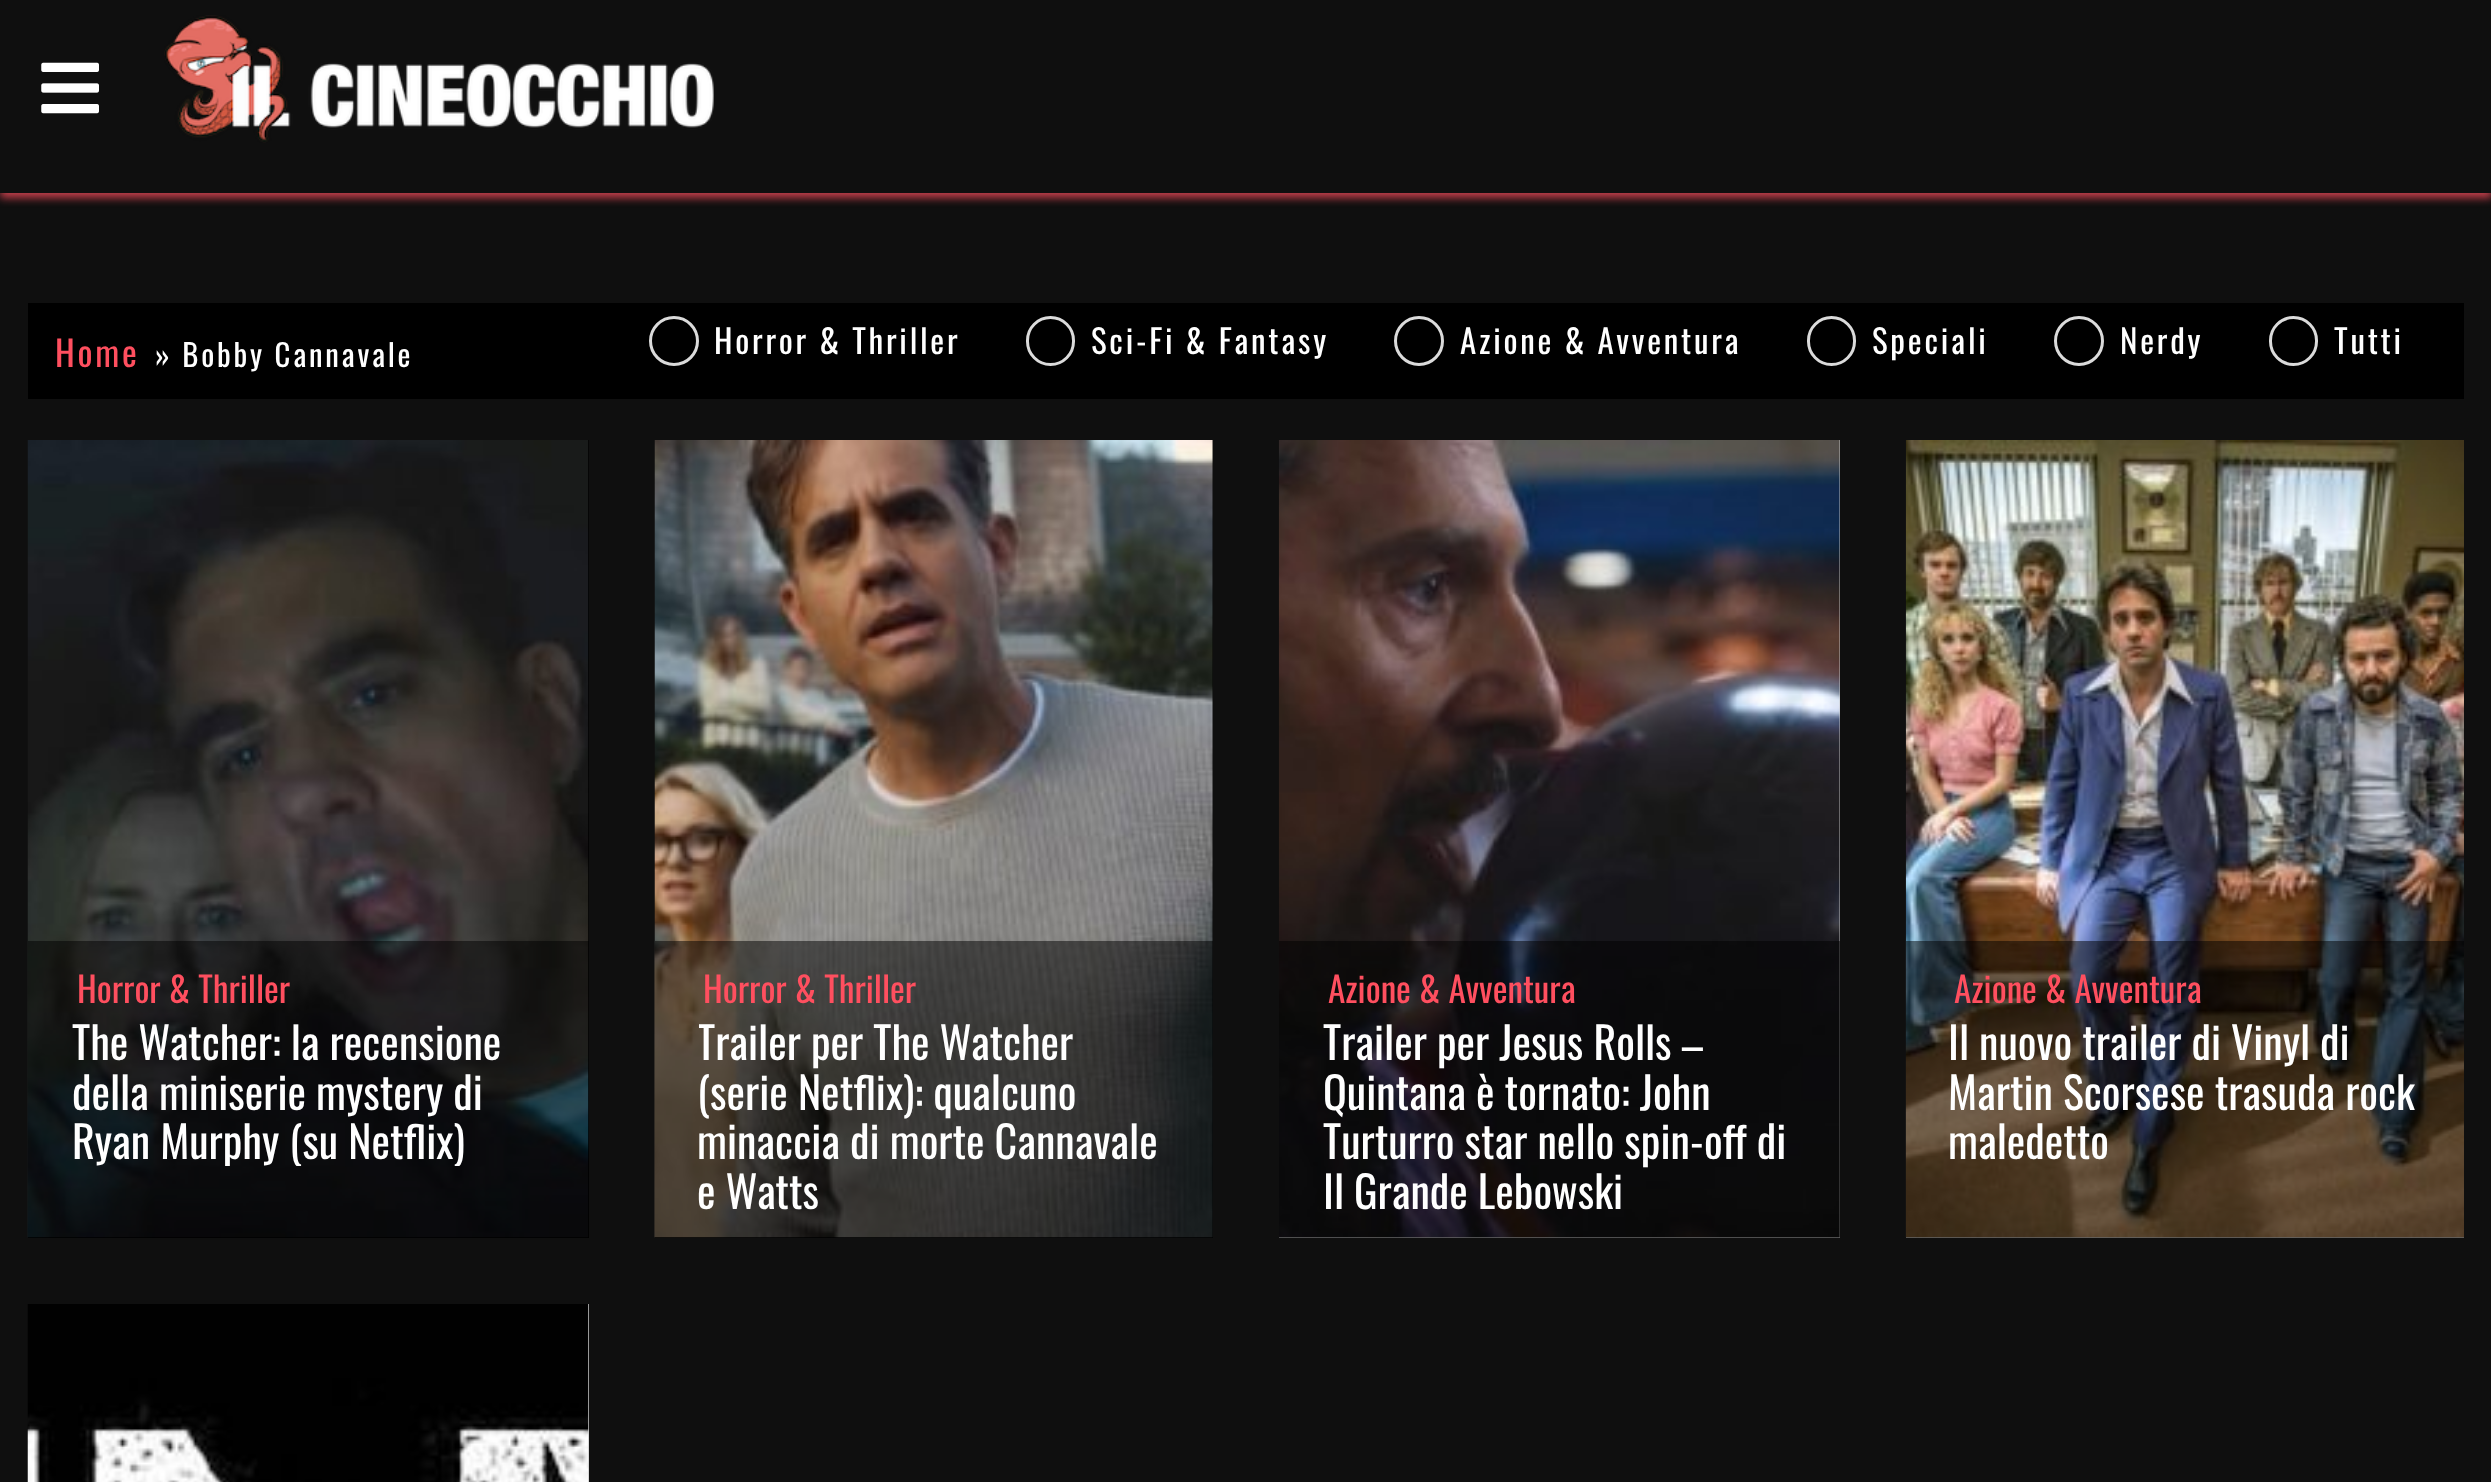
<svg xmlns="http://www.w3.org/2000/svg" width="2491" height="1482">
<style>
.a{font:35.25px Oswald;letter-spacing:2.75px;fill:#ff4f5f}
.b{font:30.75px Oswald;letter-spacing:2.75px;fill:#fff}
.c{font:33px Oswald;letter-spacing:2.75px;fill:#fff}
.d{font:35.25px Oswald;fill:#ff4f5f}
.e{font:44px Oswald;fill:#fff}
</style>
<defs>
<clipPath id="clip1"><path d="M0 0h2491v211h-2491zm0 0h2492v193h-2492z" clip-rule="evenodd"/></clipPath>
<clipPath id="clip2"><path d="M72 1018h473v148H72z"/></clipPath>
<clipPath id="clip3"><path d="M699 1018h470v198H699z"/></clipPath>
</defs>
<rect width="100%" height="100%" fill="#0f0f0f"/>
<g clip-path="url(#clip1)">
<path fill="#ff4f5fbf" filter="blur(4px)" d="M0 6h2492v192H0z"/>
</g>
<image href="1.png" x="41" y="62" width="58" height="52"/>
<image href="2.png" x="164" y="15" width="550" height="128"/>
<path fill="#000" d="M28 303h2436v96H28z"/>
<circle fill="none" stroke="#dbdbdb" stroke-width="3" cx="674" cy="341" r="23.5"/>
<rect fill="none" stroke="#dbdbdb" stroke-width="3" x="1027.5" y="317.5" width="46" height="47" rx="23"/>
<circle fill="none" stroke="#dbdbdb" stroke-width="3" cx="1419" cy="341" r="23.5"/>
<rect fill="none" stroke="#dbdbdb" stroke-width="3" x="1808.5" y="317.5" width="46" height="47" rx="23"/>
<circle fill="none" stroke="#dbdbdb" stroke-width="3" cx="2079" cy="341" r="23.5"/>
<rect fill="none" stroke="#dbdbdb" stroke-width="3" x="2270.5" y="317.5" width="46" height="47" rx="23"/>
<path fill="#000" d="M28 440h561v798H28z"/>
<image href="3.png" x="27" y="440" width="562" height="798"/>
<path fill="#00000080" d="M28 941h561v297H28z"/>
<path fill="#000" d="M655 440h558v798H655z"/>
<image href="4.png" x="654" y="440" width="559" height="798"/>
<path fill="#00000080" d="M655 941h558v297H655z"/>
<path fill="#ccc" d="M1279 440h561v798H1279z"/>
<image href="5.png" x="1278" y="440" width="562" height="798"/>
<path fill="#00000080" d="M1279 941h561v297H1279z"/>
<path fill="#ccc" d="M1906 1237h558v1H1906z"/>
<image href="6.png" x="1905" y="440" width="559" height="798"/>
<path fill="#00000080" d="M1906 941h558v297H1906z"/>
<path fill="#ccc" d="M588 1304h1v178H588z"/>
<image href="7.png" x="27" y="1304" width="562" height="178"/>
<text class="a" x="55" y="367">Home</text>
<text class="b" x="155" y="367">» Bobby Cannavale</text>
<text class="c" x="714" y="354">Horror &amp; Thriller</text>
<text class="c" x="1091" y="354">Sci-Fi &amp; Fantasy</text>
<text class="c" x="1460" y="354">Azione &amp; Avventura</text>
<text class="c" x="1872" y="354">Speciali</text>
<text class="c" x="2120" y="354">Nerdy</text>
<text class="c" x="2334" y="354">Tutti</text>
<text class="d" x="77" y="1003">Horror &amp; Thriller</text>
<text class="e" x="72" y="1060">The Watcher: la recensione</text>
<text class="e" x="72" y="1110">della miniserie mystery di</text>
<g clip-path="url(#clip2)">
<text class="e" x="72" y="1159">Ryan Murphy (su Netflix)</text>
</g>
<text class="d" x="703" y="1003">Horror &amp; Thriller</text>
<g clip-path="url(#clip3)">
<text class="e" x="697" y="1060">Trailer per The Watcher</text>
</g>
<text class="e" x="697" y="1110">(serie Netflix): qualcuno</text>
<text class="e" x="697" y="1159">minaccia di morte Cannavale</text>
<text class="e" x="697" y="1209">e Watts</text>
<text class="d" x="1328" y="1003">Azione &amp; Avventura</text>
<text class="e" x="1323" y="1060">Trailer per Jesus Rolls –</text>
<text class="e" x="1323" y="1110">Quintana è tornato: John</text>
<text class="e" x="1323" y="1159">Turturro star nello spin-off di</text>
<text class="e" x="1323" y="1209">Il Grande Lebowski</text>
<text class="d" x="1954" y="1003">Azione &amp; Avventura</text>
<text class="e" x="1948" y="1060">Il nuovo trailer di Vinyl di</text>
<text class="e" x="1948" y="1110">Martin Scorsese trasuda rock</text>
<text class="e" x="1948" y="1159">maledetto</text>
</svg>
